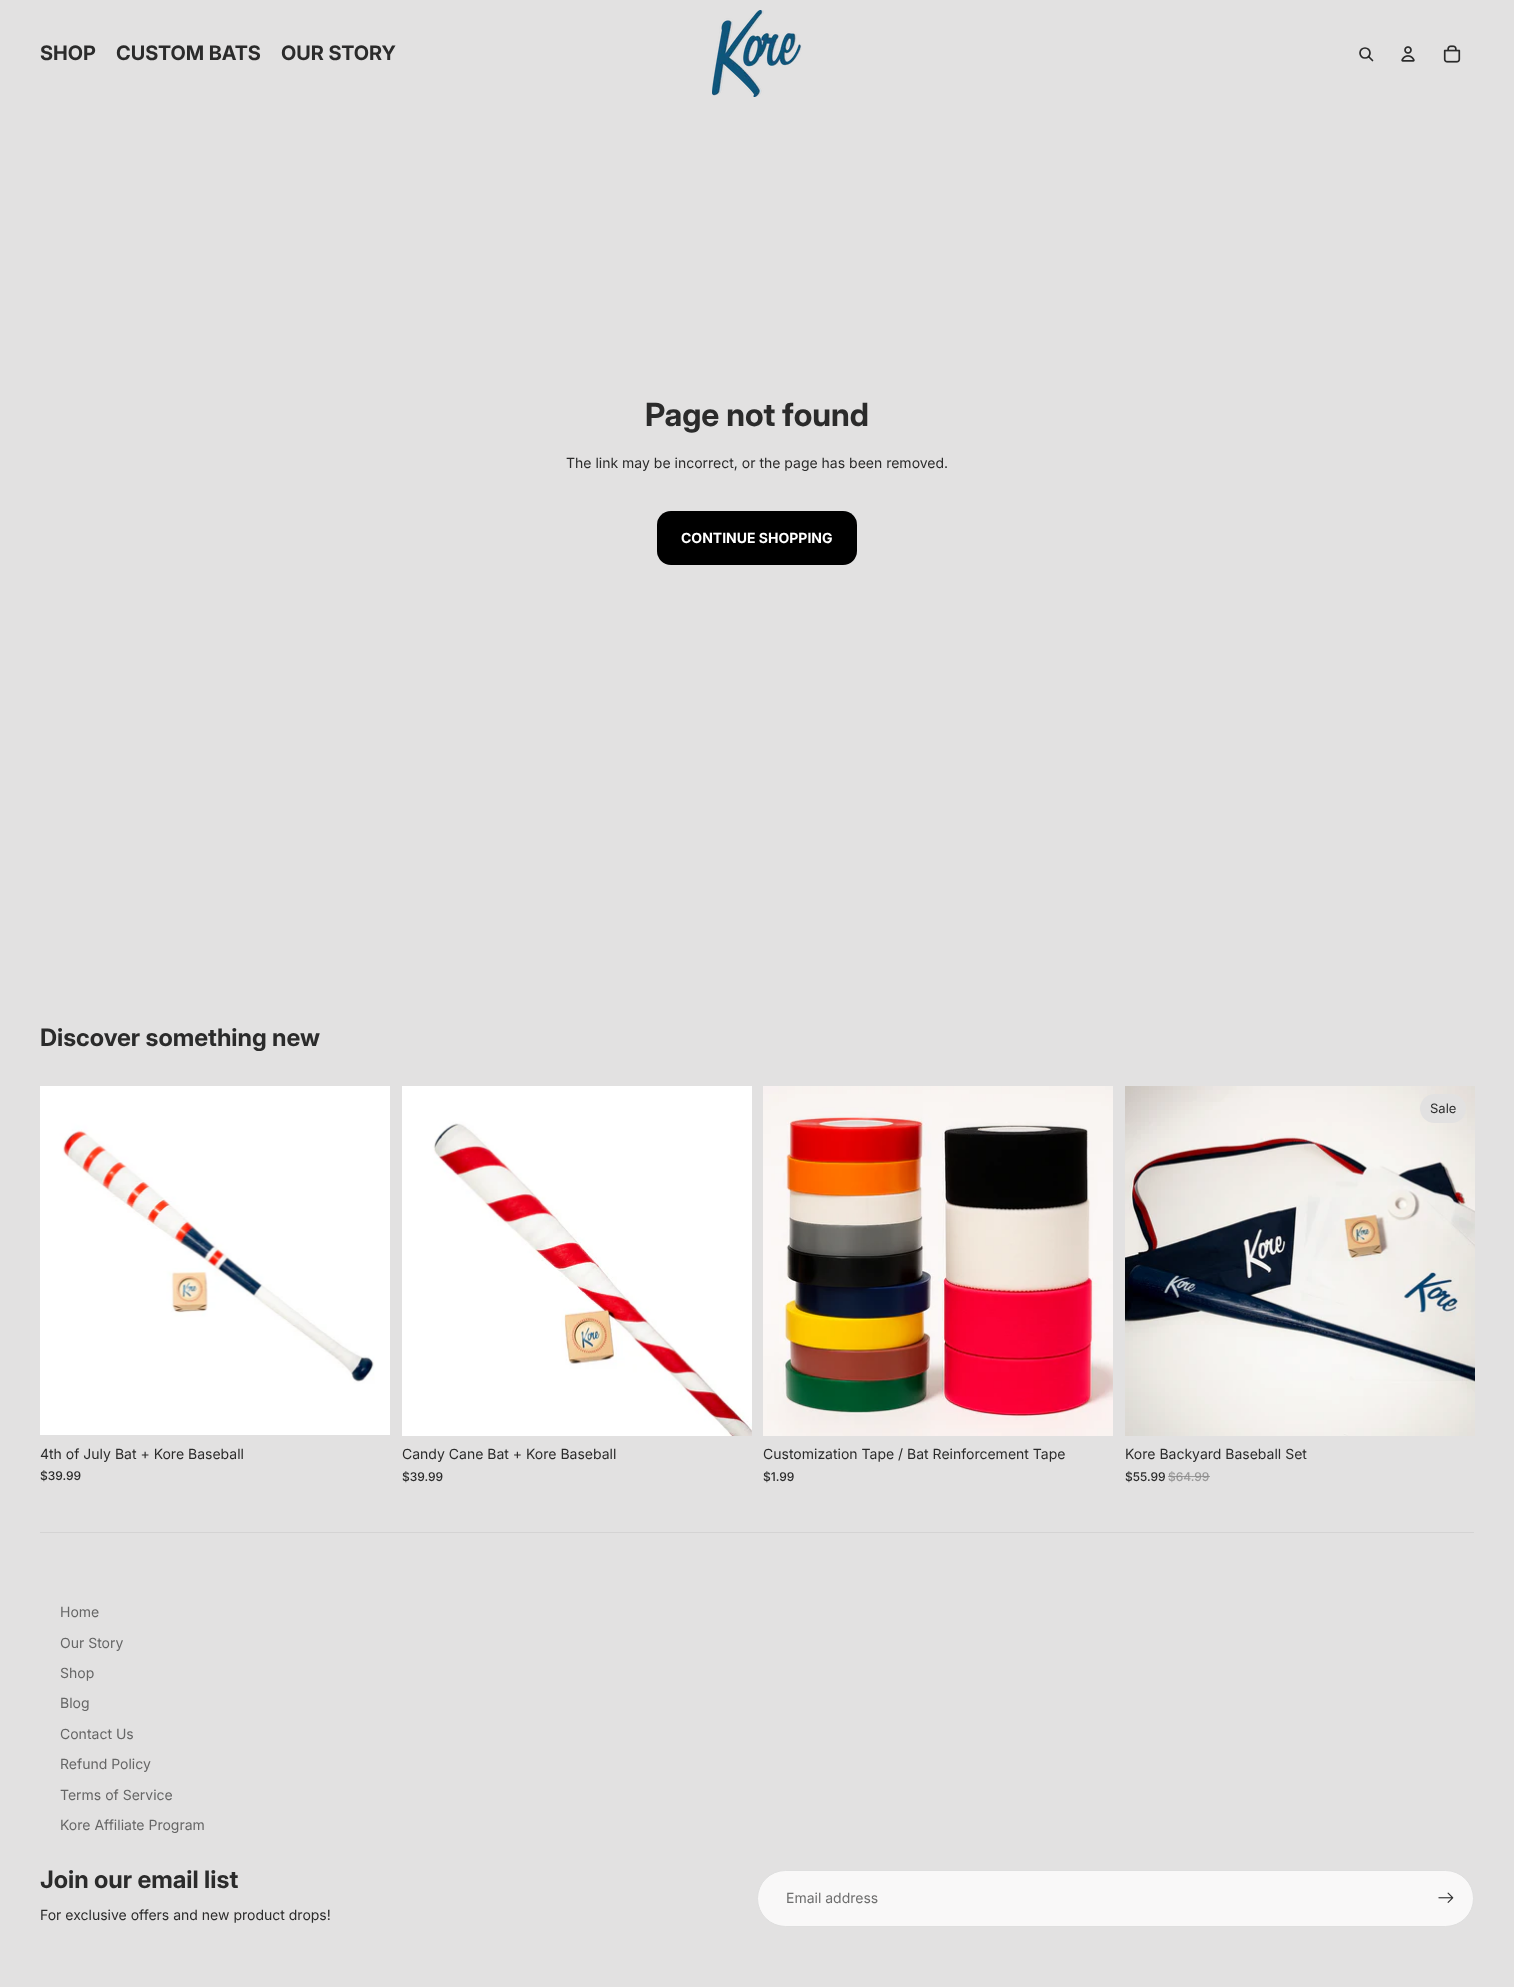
<svg xmlns="http://www.w3.org/2000/svg" width="1514" height="1987">
<style>
.a{font:bold 20px 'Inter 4';fill:#2b2b2b}
.b{font:bold 32px Inter;fill:#2b2b2b}
.c{font:14px Inter;fill:#2b2b2b}
.d{font:bold 14px 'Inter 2';fill:#fff}
.e{font:bold 24px 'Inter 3';fill:#2b2b2b}
.f{font:500 12px Inter;fill:#2b2b2b}
.g{font:13px Inter;fill:#2b2b2b}
.h{font:500 12px Inter;fill:#999898}
.i{font:14px Inter;fill:#666}
.j{font:14px Inter;fill:#6e6e6e}
</style>
<rect width="100%" height="100%" fill="#e2e1e1"/>
<image href="1.png" x="712" y="10" width="90" height="87"/>
<circle fill="none" stroke="#2b2b2b" stroke-width="1.7" cx="1365" cy="53" r="5"/>
<path fill="none" stroke="#000000cf" stroke-width="1.7" stroke-linecap="round" stroke-linejoin="round" d="M1369 57l3.5 3.5"/>
<image href="2.png" x="1401" y="46" width="14" height="16"/>
<image href="3.png" x="1443" y="45" width="18" height="18"/>
<rect fill="#000" x="657" y="511" width="200" height="54" rx="14"/>
<image href="4.png" x="40" y="1086" width="350" height="349"/>
<image href="5.png" x="402" y="1086" width="350" height="350"/>
<image href="6.png" x="763" y="1086" width="350" height="350"/>
<image href="7.png" x="1125" y="1086" width="350" height="350"/>
<rect fill="#e2e1e1" x="1420" y="1094" width="46" height="29" rx="14.5"/>
<path fill="#d4d4d4" d="M1474 1532v1l-1-1z"/>
<path fill="#0000000f" d="M1474 1533h-1434v-1h1433z"/>
<rect fill="#f9f8f8" stroke="#dfdfdf" x="757.5" y="1870.5" width="716" height="56" rx="28"/>
<image href="8.png" x="1438" y="1892" width="16" height="11"/>
<text class="a" x="40" y="60">SHOP</text>
<text class="a" x="116" y="60">CUSTOM BATS</text>
<text class="a" x="281" y="60">OUR STORY</text>
<text class="b" x="645" y="426">Page not found</text>
<text class="c" x="566" y="468">The link may be incorrect, or the page has been removed.</text>
<text class="d" x="681" y="543">CONTINUE SHOPPING</text>
<text class="e" x="40" y="1046">Discover something new</text>
<text class="c" x="40" y="1459">4th of July Bat + Kore Baseball</text>
<text class="f" x="40" y="1480">$39.99</text>
<text class="c" x="402" y="1459">Candy Cane Bat + Kore Baseball</text>
<text class="f" x="402" y="1481">$39.99</text>
<text class="c" x="763" y="1459">Customization Tape / Bat Reinforcement Tape</text>
<text class="f" x="763" y="1481">$1.99</text>
<text class="g" x="1430" y="1113">Sale</text>
<text class="c" x="1125" y="1459">Kore Backyard Baseball Set</text>
<text class="f" x="1125" y="1481">$55.99</text>
<text class="h" x="1168" y="1481">$64.99</text>
<path fill="#888787cf" d="M1168 1476h42v1H1168z"/>
<text class="i" x="60" y="1617">Home</text>
<text class="i" x="60" y="1648">Our Story</text>
<text class="i" x="60" y="1678">Shop</text>
<text class="i" x="60" y="1708">Blog</text>
<text class="i" x="60" y="1739">Contact Us</text>
<text class="i" x="60" y="1769">Refund Policy</text>
<text class="i" x="60" y="1800">Terms of Service</text>
<text class="i" x="60" y="1830">Kore Affiliate Program</text>
<text class="e" x="40" y="1888">Join our email list</text>
<text class="c" x="40" y="1920">For exclusive offers and new product drops!</text>
<text class="j" x="786" y="1903">Email address</text>
</svg>
